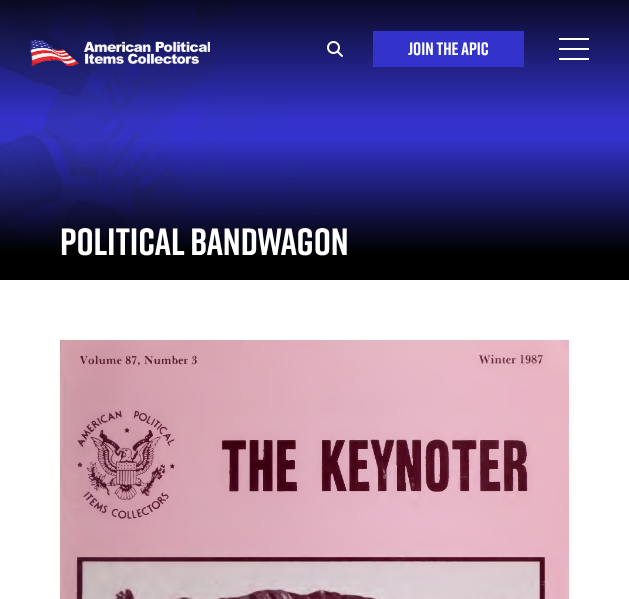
<svg xmlns="http://www.w3.org/2000/svg" width="629" height="599">
<style>
.a{font:bold 18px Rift;fill:#fff}
.b{font:bold 38px Rift;fill:#fff}
</style>
<rect width="100%" height="100%" fill="#fff"/>
<image href="3.png" x="0" y="0" width="629" height="280"/>
<image href="1.png" x="30" y="40" width="180" height="26"/>
<image href="2.png" x="327" y="41" width="16" height="16"/>
<path fill="#33c" d="M373 31h151v36H373z"/>
<path fill="#fff" d="M559 38h30v2H559z"/>
<path fill="#fff" d="M559 48h30v2H559z"/>
<path fill="#fff" d="M559 58h30v2H559z"/>
<image href="4.png" x="60" y="340" width="509" height="259"/>
<text class="a" x="408" y="55">JOIN THE APIC</text>
<text class="b" x="60" y="255">Political Bandwagon</text>
</svg>
